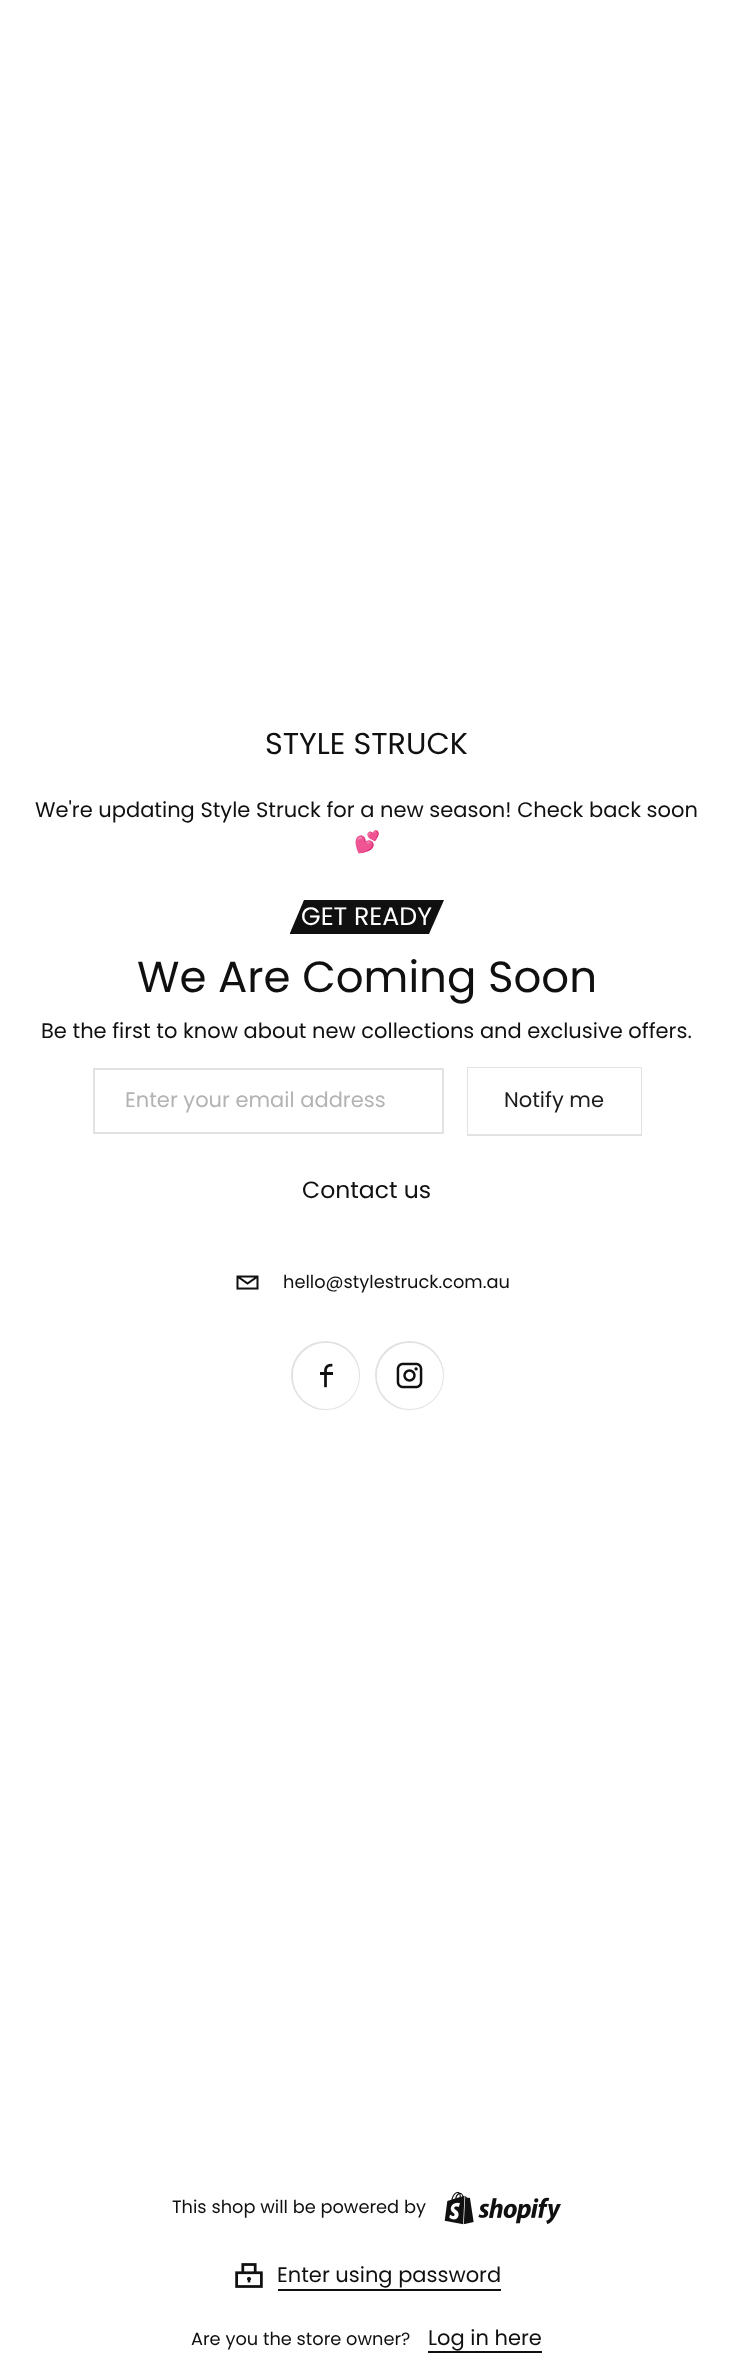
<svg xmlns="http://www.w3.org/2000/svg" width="733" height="2373">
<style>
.a{font:30.25px Poppins;fill:#101010}
.b{font:21px Poppins;fill:#101010}
.c{font:21px Noto Color Emoji;fill:#101010}
.d{font:25.25px Poppins;fill:#fff}
.e{font:43.5px Poppins;fill:#101010}
.f{font:21px Poppins;fill:#b3b3b3}
.g{font:21px Poppins;fill:#1c1c1c}
.h{font:23.5px Poppins;fill:#101010}
.i{font:17.8px Poppins;fill:#101010}
</style>
<rect width="100%" height="100%" fill="#fff"/>
<path fill="#101010" d="M290 933l14-33h140l-15 34h-139z"/>
<path fill="none" stroke="#e2e2e2" stroke-width="2" d="M94 1069h349v64H94z"/>
<path fill="none" stroke="#e2e2e2" stroke-width="2" d="M468 1068h173v67H468z"/>
<path fill="#fff" d="M468 1068h173v66H468z"/>
<image href="1.png" x="236" y="1275" width="23" height="15"/>
<circle fill="none" stroke="#e2e2e2" stroke-width="2" cx="325.5" cy="1375.5" r="33.5"/>
<circle fill="#fff" cx="326" cy="1376" r="33"/>
<image href="2.png" x="320" y="1363" width="13" height="25"/>
<circle fill="none" stroke="#e2e2e2" stroke-width="2" cx="409.5" cy="1375.5" r="33.5"/>
<circle fill="#fff" cx="410" cy="1376" r="33"/>
<image href="3.png" x="396" y="1362" width="27" height="27"/>
<image href="4.png" x="444" y="2191" width="117" height="34"/>
<image href="5.png" x="235" y="2263" width="28" height="25"/>
<path fill="#101010" d="M278 2289h223v2H278z"/>
<path fill="#101010" d="M428 2351h114v2H428z"/>
<text class="a" x="265" y="754">STYLE STRUCK</text>
<text class="b" x="35" y="817">We're updating Style Struck for a new season! Check back soon</text>
<text class="c" x="354" y="849">💕</text>
<text class="d" x="301" y="925">GET READY</text>
<text class="e" x="137" y="992">We Are Coming Soon</text>
<text class="b" x="41" y="1038">Be the first to know about new collections and exclusive offers.</text>
<text class="f" x="125" y="1107">Enter your email address</text>
<text class="g" x="504" y="1107">Notify me</text>
<text class="h" x="302" y="1198">Contact us</text>
<text class="i" x="283" y="1288">hello@stylestruck.com.au</text>
<text class="i" x="172" y="2213">This shop will be powered by</text>
<text class="b" x="277" y="2282">Enter using password</text>
<text class="i" x="191" y="2345">Are you the store owner?</text>
<text class="b" x="428" y="2345">Log in here</text>
</svg>
